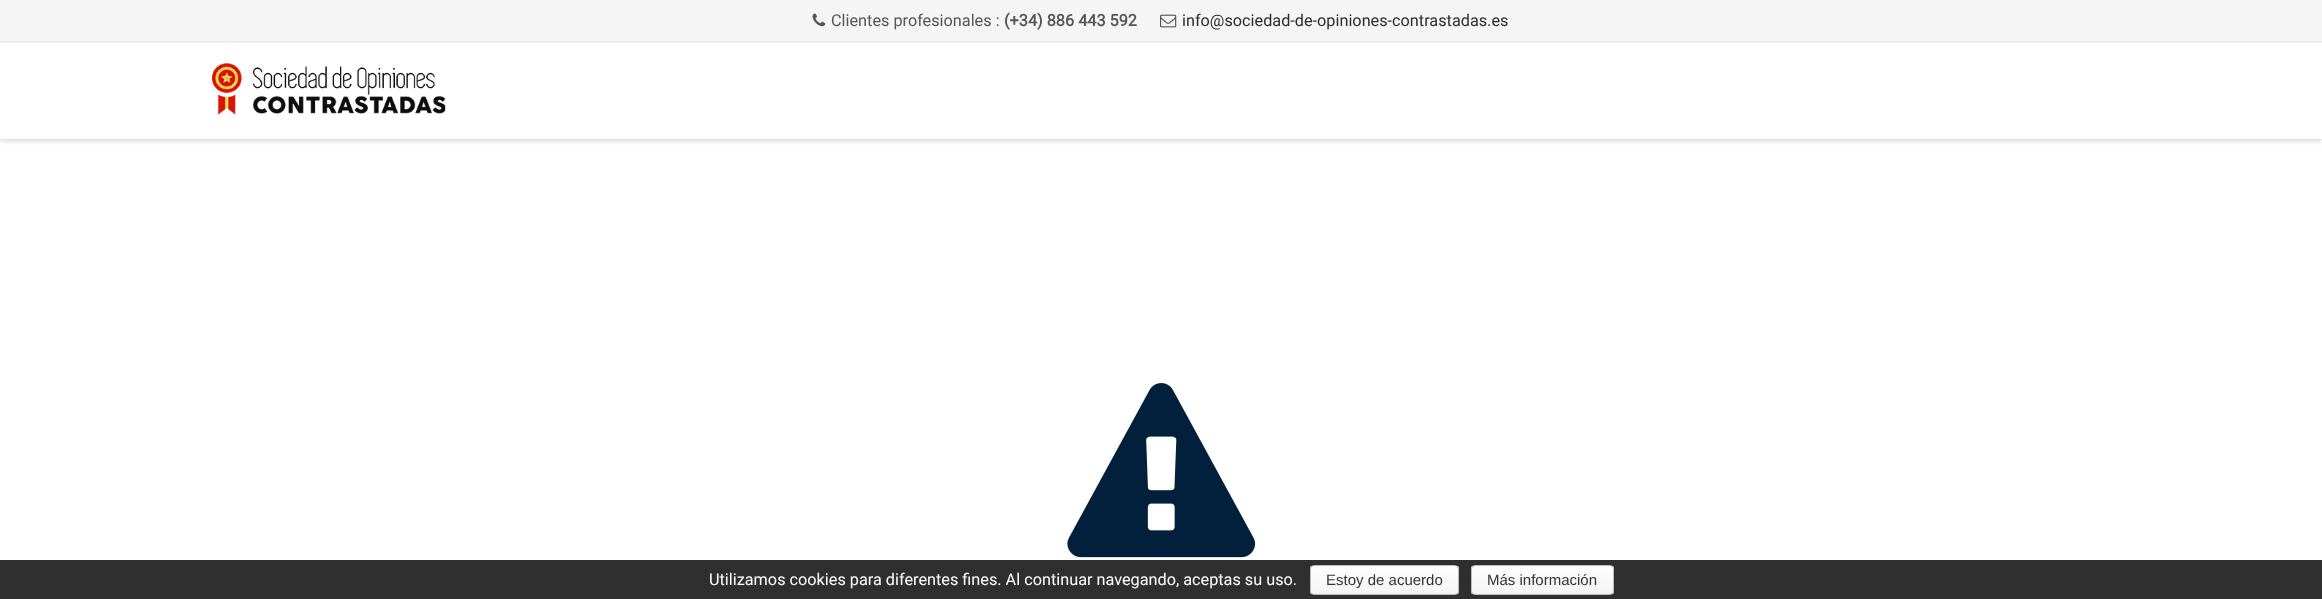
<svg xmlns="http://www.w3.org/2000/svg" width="2322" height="599">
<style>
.a{font:16.25px Roboto;fill:#565656}
.b{font:bold 16.25px Roboto;fill:#565656}
.c{font:16.25px Roboto;fill:#2d2d2d}
.d{font:16.25px Roboto;fill:#fff}
.e{font:15px Liberation Sans;fill:#333}
</style>
<defs>
<clipPath id="clip1"><rect x="1310" y="565" width="149" height="30" rx="4"/></clipPath>
<linearGradient id="g1" gradientUnits="userSpaceOnUse" x1="1384" y1="566" x2="1384" y2="594"><stop offset="0" stop-color="#fefefe"/><stop offset="1" stop-color="#f4f4f4"/></linearGradient>
<clipPath id="clip2"><rect x="1471" y="565" width="143" height="30" rx="4"/></clipPath>
<linearGradient id="g2" gradientUnits="userSpaceOnUse" x1="1543" y1="566" x2="1543" y2="594"><stop offset="0" stop-color="#fefefe"/><stop offset="1" stop-color="#f4f4f4"/></linearGradient>
</defs>
<rect width="100%" height="100%" fill="#fff"/>
<path fill="#00000033" filter="blur(3px)" d="M0 1h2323v139H0z"/>
<path fill="#f5f5f5" d="M0 0h2322v43H0z"/>
<path fill="#eaeaea" d="M0 41h2322v1H0z"/>
<image href="1.png" x="812" y="13" width="14" height="14"/>
<image href="2.png" x="1160" y="14" width="17" height="14"/>
<path fill="#fff" d="M0 43h2322v96H0z"/>
<image href="3.png" x="212" y="63" width="234" height="52"/>
<image href="4.png" x="1067" y="383" width="189" height="175"/>
<path fill="#2f2f2f" d="M0 560h2322v39H0z"/>
<g clip-path="url(#clip1)">
<path fill="url(#g1)" d="M1310 566h149v28H1310z"/>
</g>
<rect fill="none" stroke="#bbb" x="1310.5" y="565.5" width="148" height="29" rx="3.5"/>
<g clip-path="url(#clip2)">
<path fill="url(#g2)" d="M1471 566h143v28H1471z"/>
</g>
<rect fill="none" stroke="#bbb" x="1471.5" y="565.5" width="142" height="29" rx="3.5"/>
<text class="a" x="831" y="26">Clientes profesionales :</text>
<text class="b" x="1004" y="26">(+34) 886 443 592</text>
<text class="c" x="1182" y="26">info@sociedad-de-opiniones-contrastadas.es</text>
<text class="d" x="709" y="585">Utilizamos cookies para diferentes fines. Al continuar navegando, aceptas su uso.</text>
<text class="e" x="1326" y="585">Estoy de acuerdo</text>
<text class="e" x="1487" y="585">Más información</text>
</svg>
